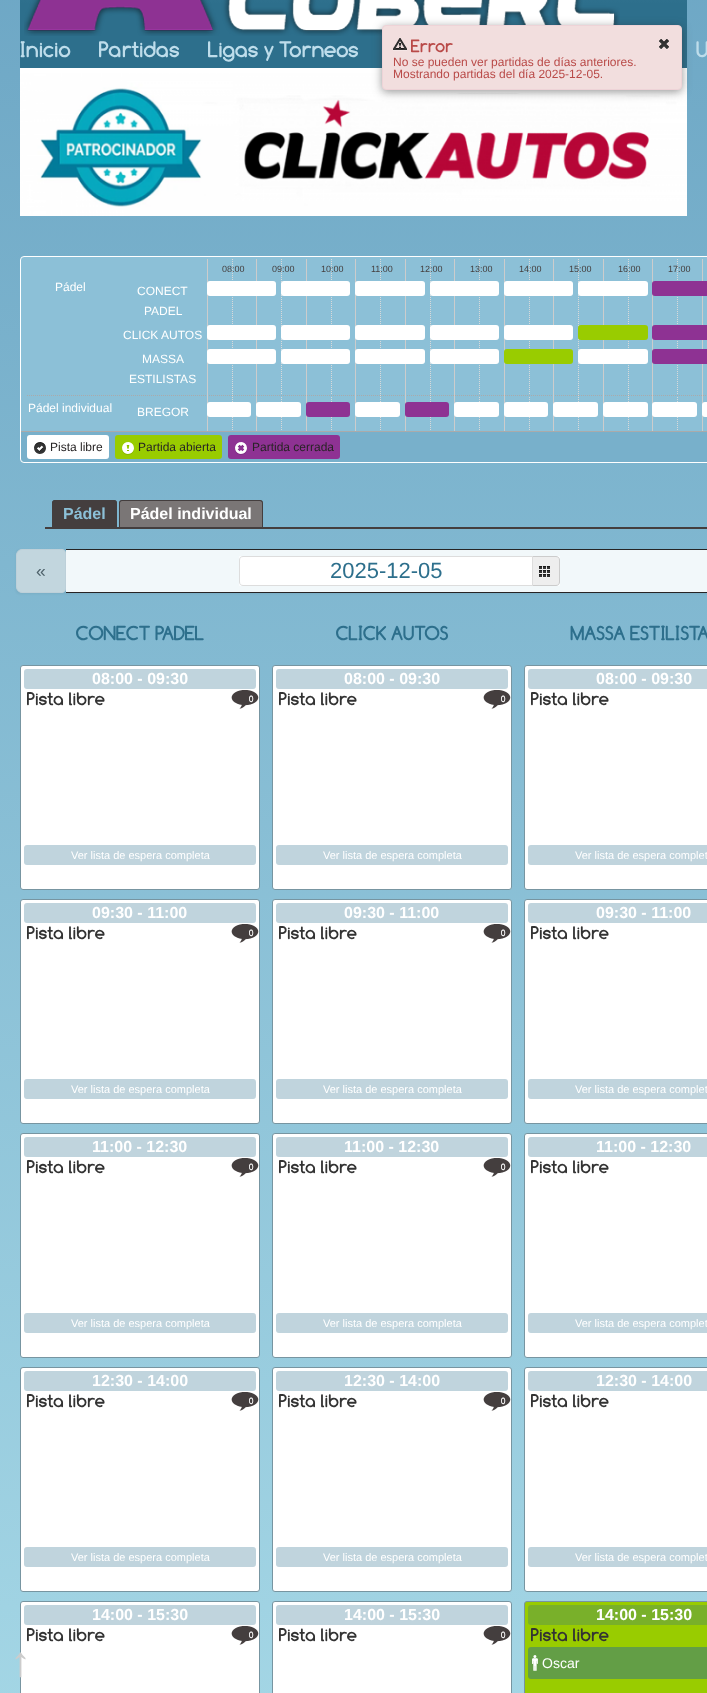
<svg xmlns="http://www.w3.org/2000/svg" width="707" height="1693">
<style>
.a{font:bold 17.5px Comfortaa;fill:#b94a48}
.b{font:12px Liberation Sans;fill:#b94a48}
.c{font:bold 22px Comfortaa;fill:#beddeb}
.d{font:9px Liberation Sans;fill:#443e3e}
.e{font:12px Liberation Sans;fill:#fff}
.f{font:12px Liberation Sans;fill:#272425}
.g{font:42px Liberation Sans;fill:#ccc}
.h{font:bold 16px Liberation Sans;fill:#8cc0d7}
.i{font:bold 16px Liberation Sans;fill:#fff}
.j{font:17.5px Liberation Sans;fill:#4e616a}
.k{font:22px Liberation Sans;fill:#2d6f8c}
.l{font:bold 20px Comfortaa;fill:#2d6f8c}
.m{font:bold 18px Comfortaa;fill:#333}
.n{font:bold 9px Comfortaa;fill:#fff}
.o{font:11px Liberation Sans;fill:#fff}
.p{font:14px Liberation Sans;fill:#fff}
</style>
<defs>
<linearGradient id="g1" gradientUnits="userSpaceOnUse" x1="0" y1="-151" x2="0" y2="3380"><stop offset="0" stop-color="#6aa4c3"/><stop offset="0.7" stop-color="#b6e6f0"/><stop offset="1" stop-color="#b6e6f0"/></linearGradient>
<linearGradient id="g2" gradientUnits="userSpaceOnUse" x1="20" y1="-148" x2="20" y2="68"><stop offset="0" stop-color="#6aa4c3"/><stop offset="0.7" stop-color="#2d6f8c"/><stop offset="1" stop-color="#2d6f8c"/></linearGradient>
<clipPath id="clip1"><rect x="21" y="257" width="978" height="205" rx="3"/></clipPath>
</defs>
<rect width="100%" height="100%" fill="#fff"/>
<path fill="url(#g1)" d="M0 0h707v1693H0z"/>
<path fill="url(#g2)" d="M20 0h667v68H20z"/>
<path fill="#fff" d="M20 68h667v5H20z"/>
<image href="3.png" x="24" y="0" width="596" height="36"/>
<image href="4.png" x="20" y="73" width="667" height="143"/>
<rect fill="#32323280" filter="blur(5px)" x="382" y="27" width="300" height="65" rx="4"/>
<rect fill="#f2dede" stroke="#eed3d7" x="382.5" y="25.5" width="299" height="64" rx="3.5"/>
<image href="1.png" x="393" y="38" width="14" height="13"/>
<image href="2.png" x="659" y="39" width="10" height="11"/>
<rect fill="#8cc0d7" stroke="#fff" x="20.5" y="256.5" width="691" height="206" rx="3.5"/>
<image href="5.png" x="232" y="259" width="1" height="171"/>
<image href="5.png" x="281" y="259" width="1" height="171"/>
<image href="5.png" x="331" y="259" width="1" height="171"/>
<image href="5.png" x="380" y="259" width="1" height="171"/>
<image href="5.png" x="430" y="259" width="1" height="171"/>
<image href="5.png" x="479" y="259" width="1" height="171"/>
<image href="5.png" x="529" y="259" width="1" height="171"/>
<image href="5.png" x="578" y="259" width="1" height="171"/>
<image href="5.png" x="628" y="259" width="1" height="171"/>
<image href="5.png" x="677" y="259" width="1" height="171"/>
<path fill="none" stroke="#aaa" stroke-dasharray="1 1" d="M27 395.5h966"/>
<path fill="#ccc" d="M702 259h1v172H702z"/>
<path fill="#ccc" d="M207 259h1v172H207z"/>
<path fill="#ccc" d="M256 259h1v172H256z"/>
<path fill="#ccc" d="M306 259h1v172H306z"/>
<path fill="#ccc" d="M355 259h1v172H355z"/>
<path fill="#ccc" d="M405 259h1v172H405z"/>
<path fill="#ccc" d="M454 259h1v172H454z"/>
<path fill="#ccc" d="M504 259h1v172H504z"/>
<path fill="#ccc" d="M553 259h1v172H553z"/>
<path fill="#ccc" d="M603 259h1v172H603z"/>
<path fill="#ccc" d="M652 259h1v172H652z"/>
<rect fill="#fff" x="207" y="281" width="69" height="15" rx="3"/>
<rect fill="#fff" x="281" y="281" width="69" height="15" rx="3"/>
<rect fill="#fff" x="355" y="281" width="70" height="15" rx="3"/>
<rect fill="#fff" x="430" y="281" width="69" height="15" rx="3"/>
<rect fill="#fff" x="504" y="281" width="69" height="15" rx="3"/>
<rect fill="#fff" x="578" y="281" width="70" height="15" rx="3"/>
<rect fill="#8e3293" x="652" y="281" width="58" height="15" rx="3"/>
<rect fill="#fff" x="207" y="325" width="69" height="15" rx="3"/>
<rect fill="#fff" x="281" y="325" width="69" height="15" rx="3"/>
<rect fill="#fff" x="355" y="325" width="70" height="15" rx="3"/>
<rect fill="#fff" x="430" y="325" width="69" height="15" rx="3"/>
<rect fill="#fff" x="504" y="325" width="69" height="15" rx="3"/>
<rect fill="#9c0" x="578" y="325" width="70" height="15" rx="3"/>
<rect fill="#8e3293" x="652" y="325" width="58" height="15" rx="3"/>
<rect fill="#fff" x="207" y="349" width="69" height="15" rx="3"/>
<rect fill="#fff" x="281" y="349" width="69" height="15" rx="3"/>
<rect fill="#fff" x="355" y="349" width="70" height="15" rx="3"/>
<rect fill="#fff" x="430" y="349" width="69" height="15" rx="3"/>
<rect fill="#9c0" x="504" y="349" width="69" height="15" rx="3"/>
<rect fill="#fff" x="578" y="349" width="70" height="15" rx="3"/>
<rect fill="#8e3293" x="652" y="349" width="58" height="15" rx="3"/>
<rect fill="#fff" x="207" y="402" width="44" height="15" rx="3"/>
<rect fill="#fff" x="256" y="402" width="45" height="15" rx="3"/>
<rect fill="#8e3293" x="306" y="402" width="44" height="15" rx="3"/>
<rect fill="#fff" x="355" y="402" width="45" height="15" rx="3"/>
<rect fill="#8e3293" x="405" y="402" width="44" height="15" rx="3"/>
<rect fill="#fff" x="454" y="402" width="45" height="15" rx="3"/>
<rect fill="#fff" x="504" y="402" width="44" height="15" rx="3"/>
<rect fill="#fff" x="553" y="402" width="45" height="15" rx="3"/>
<rect fill="#fff" x="603" y="402" width="45" height="15" rx="3"/>
<rect fill="#fff" x="652" y="402" width="45" height="15" rx="3"/>
<rect fill="#fff" x="702" y="402" width="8" height="15" rx="3"/>
<g clip-path="url(#clip1)">
<path fill="#78b0cb" d="M21 431h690v27c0 2-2 4-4 4h-682c-2 0-4-2-4-4z"/>
</g>
<path fill="#aaa" d="M21 431h686v1H21z"/>
<rect fill="#fff" x="27" y="435" width="82" height="24" rx="3"/>
<image href="6.png" x="34" y="442" width="12" height="12"/>
<rect fill="#9c0" x="115" y="435" width="107" height="24" rx="3"/>
<image href="7.png" x="122" y="442" width="12" height="13"/>
<rect fill="#8e3293" x="228" y="435" width="112" height="24" rx="3"/>
<image href="8.png" x="235" y="442" width="12" height="13"/>
<path fill="#443e3e" d="M45 527h662v2H45z"/>
<path fill="#443e3e" d="M55 500h59c1.5 0 3 1.5 3 3v24h-65v-24c0-1.5 1.5-3 3-3z"/>
<path fill="#443e3e" fill-rule="evenodd" d="M55 500h59c2 0 3 1 3 3v24h-65v-24c0-2 1-3 3-3zm0 1h59c1 0 2 1 2 2v24h-63v-24c0-1 1-2 2-2z"/>
<path fill="#7a7676" d="M122 500h138c1.5 0 3 1.5 3 3v24h-144v-24c0-1.5 1.5-3 3-3z"/>
<path fill="#443e3e" fill-rule="evenodd" d="M122 500h138c2 0 3 1 3 3v24h-144v-24c0-2 1-3 3-3zm0 1h138c1 0 2 1 2 2v24h-142v-24c0-1 1-2 2-2z"/>
<rect fill="#0000000d" filter="blur(1px)" x="16" y="550" width="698" height="44" rx="4"/>
<path fill="#c2d6de" stroke="#bdd0d9" d="M22 549.5h40c2 0 3.5 1.5 3.5 3.5v36c0 2-1.5 3.5-3.5 3.5h-40c-3 0-5.5-2.5-5.5-5.5v-32c0-3 2.5-5.5 5.5-5.5z"/>
<path fill="#f2f8fa" d="M66 550h641v42H66z"/>
<path fill="#272425" d="M66 549h641v1H66z"/>
<path fill="#272425" d="M66 592h641v1H66z"/>
<path fill="#fafcfd" d="M239 556h321v30H239z"/>
<path fill="#eee" stroke="#ccc" d="M532.5 556.5h23.5c2 0 3.5 1.5 3.5 3.5v22c0 2-1.5 3.5-3.5 3.5h-23.5z"/>
<path fill="#fff" stroke="#ddd" d="M243 556.5h289.5v29h-289.5c-2 0-3.5-1.5-3.5-3.5v-22c0-2 1.5-3.5 3.5-3.5z"/>
<image href="9.png" x="539" y="566" width="11" height="12"/>
<rect fill="#fff" stroke="#7795a1" x="20.5" y="665.5" width="239" height="224" rx="2.5"/>
<rect fill="#c0d4dd" x="24" y="669" width="232" height="20" rx="3"/>
<image href="10.png" x="231" y="690" width="28" height="19"/>
<rect fill="#c0d4dd" x="24" y="845" width="232" height="20" rx="3"/>
<rect fill="#fff" stroke="#7795a1" x="272.5" y="665.5" width="239" height="224" rx="2.5"/>
<rect fill="#c0d4dd" x="276" y="669" width="232" height="20" rx="3"/>
<image href="10.png" x="483" y="690" width="28" height="19"/>
<rect fill="#c0d4dd" x="276" y="845" width="232" height="20" rx="3"/>
<rect fill="#fff" stroke="#7795a1" x="524.5" y="665.5" width="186" height="224" rx="2.5"/>
<rect fill="#c0d4dd" x="528" y="669" width="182" height="20" rx="3"/>
<rect fill="#c0d4dd" x="528" y="845" width="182" height="20" rx="3"/>
<rect fill="#fff" stroke="#7795a1" x="20.5" y="899.5" width="239" height="224" rx="2.5"/>
<rect fill="#c0d4dd" x="24" y="903" width="232" height="20" rx="3"/>
<image href="10.png" x="231" y="924" width="28" height="19"/>
<rect fill="#c0d4dd" x="24" y="1079" width="232" height="20" rx="3"/>
<rect fill="#fff" stroke="#7795a1" x="272.5" y="899.5" width="239" height="224" rx="2.5"/>
<rect fill="#c0d4dd" x="276" y="903" width="232" height="20" rx="3"/>
<image href="10.png" x="483" y="924" width="28" height="19"/>
<rect fill="#c0d4dd" x="276" y="1079" width="232" height="20" rx="3"/>
<rect fill="#fff" stroke="#7795a1" x="524.5" y="899.5" width="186" height="224" rx="2.5"/>
<rect fill="#c0d4dd" x="528" y="903" width="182" height="20" rx="3"/>
<rect fill="#c0d4dd" x="528" y="1079" width="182" height="20" rx="3"/>
<rect fill="#fff" stroke="#7795a1" x="20.5" y="1133.5" width="239" height="224" rx="2.5"/>
<rect fill="#c0d4dd" x="24" y="1137" width="232" height="20" rx="3"/>
<image href="10.png" x="231" y="1158" width="28" height="19"/>
<rect fill="#c0d4dd" x="24" y="1313" width="232" height="20" rx="3"/>
<rect fill="#fff" stroke="#7795a1" x="272.5" y="1133.5" width="239" height="224" rx="2.5"/>
<rect fill="#c0d4dd" x="276" y="1137" width="232" height="20" rx="3"/>
<image href="10.png" x="483" y="1158" width="28" height="19"/>
<rect fill="#c0d4dd" x="276" y="1313" width="232" height="20" rx="3"/>
<rect fill="#fff" stroke="#7795a1" x="524.5" y="1133.5" width="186" height="224" rx="2.5"/>
<rect fill="#c0d4dd" x="528" y="1137" width="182" height="20" rx="3"/>
<rect fill="#c0d4dd" x="528" y="1313" width="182" height="20" rx="3"/>
<rect fill="#fff" stroke="#7795a1" x="20.5" y="1367.5" width="239" height="224" rx="2.5"/>
<rect fill="#c0d4dd" x="24" y="1371" width="232" height="20" rx="3"/>
<image href="10.png" x="231" y="1392" width="28" height="19"/>
<rect fill="#c0d4dd" x="24" y="1547" width="232" height="20" rx="3"/>
<rect fill="#fff" stroke="#7795a1" x="272.5" y="1367.5" width="239" height="224" rx="2.5"/>
<rect fill="#c0d4dd" x="276" y="1371" width="232" height="20" rx="3"/>
<image href="10.png" x="483" y="1392" width="28" height="19"/>
<rect fill="#c0d4dd" x="276" y="1547" width="232" height="20" rx="3"/>
<rect fill="#fff" stroke="#7795a1" x="524.5" y="1367.5" width="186" height="224" rx="2.5"/>
<rect fill="#c0d4dd" x="528" y="1371" width="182" height="20" rx="3"/>
<rect fill="#c0d4dd" x="528" y="1547" width="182" height="20" rx="3"/>
<rect fill="#fff" stroke="#7795a1" x="20.5" y="1601.5" width="239" height="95" rx="2.5"/>
<rect fill="#c0d4dd" x="24" y="1605" width="232" height="20" rx="3"/>
<image href="10.png" x="231" y="1626" width="28" height="19"/>
<rect fill="#fff" stroke="#7795a1" x="272.5" y="1601.5" width="239" height="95" rx="2.5"/>
<rect fill="#c0d4dd" x="276" y="1605" width="232" height="20" rx="3"/>
<image href="10.png" x="483" y="1626" width="28" height="19"/>
<rect fill="#9c0" stroke="#7795a1" x="524.5" y="1601.5" width="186" height="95" rx="2.5"/>
<rect fill="#79b02a" x="528" y="1605" width="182" height="20" rx="3"/>
<rect fill="#639e46" x="528" y="1647" width="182" height="32" rx="3"/>
<image href="11.png" x="532" y="1655" width="6" height="16"/>
<text class="a" x="411" y="52">Error</text>
<text class="b" x="393" y="66">No se pueden ver partidas de días anteriores.</text>
<text class="b" x="393" y="78">Mostrando partidas del día 2025-12-05.</text>
<text class="c" x="20" y="57">Inicio</text>
<text class="c" x="99" y="57">Partidas</text>
<text class="c" x="208" y="57">Ligas y Torneos</text>
<text class="c" x="696" y="57">U</text>
<text class="d" x="222" y="272">08:00</text>
<text class="d" x="272" y="272">09:00</text>
<text class="d" x="321" y="272">10:00</text>
<text class="d" x="371" y="272">11:00</text>
<text class="d" x="420" y="272">12:00</text>
<text class="d" x="470" y="272">13:00</text>
<text class="d" x="519" y="272">14:00</text>
<text class="d" x="569" y="272">15:00</text>
<text class="d" x="618" y="272">16:00</text>
<text class="d" x="668" y="272">17:00</text>
<text class="e" x="55" y="291">Pádel</text>
<text class="e" x="137" y="295">CONECT</text>
<text class="e" x="144" y="315">PADEL</text>
<text class="e" x="123" y="339">CLICK AUTOS</text>
<text class="e" x="142" y="363">MASSA</text>
<text class="e" x="129" y="383">ESTILISTAS</text>
<text class="e" x="28" y="412">Pádel individual</text>
<text class="e" x="137" y="416">BREGOR</text>
<text class="f" x="50" y="451">Pista libre</text>
<text class="f" x="138" y="451">Partida abierta</text>
<text class="f" x="252" y="451">Partida cerrada</text>
<text class="g" x="10" y="1676">↑</text>
<text class="h" x="63" y="519">Pádel</text>
<text class="i" x="130" y="519">Pádel individual</text>
<text class="j" x="36" y="577">«</text>
<text class="k" x="330" y="578">2025-12-05</text>
<text class="l" x="76" y="640">CONECT PADEL</text>
<text class="l" x="336" y="640">CLICK AUTOS</text>
<text class="l" x="570" y="640">MASSA ESTILISTA</text>
<text class="i" x="92" y="684">08:00 - 09:30</text>
<text class="m" x="27" y="705">Pista libre</text>
<text class="n" x="249" y="702">0</text>
<text class="o" x="71" y="859">Ver lista de espera completa</text>
<text class="i" x="344" y="684">08:00 - 09:30</text>
<text class="m" x="279" y="705">Pista libre</text>
<text class="n" x="501" y="702">0</text>
<text class="o" x="323" y="859">Ver lista de espera completa</text>
<text class="i" x="596" y="684">08:00 - 09:30</text>
<text class="m" x="531" y="705">Pista libre</text>
<text class="o" x="575" y="859">Ver lista de espera complet</text>
<text class="i" x="92" y="918">09:30 - 11:00</text>
<text class="m" x="27" y="939">Pista libre</text>
<text class="n" x="249" y="936">0</text>
<text class="o" x="71" y="1093">Ver lista de espera completa</text>
<text class="i" x="344" y="918">09:30 - 11:00</text>
<text class="m" x="279" y="939">Pista libre</text>
<text class="n" x="501" y="936">0</text>
<text class="o" x="323" y="1093">Ver lista de espera completa</text>
<text class="i" x="596" y="918">09:30 - 11:00</text>
<text class="m" x="531" y="939">Pista libre</text>
<text class="o" x="575" y="1093">Ver lista de espera complet</text>
<text class="i" x="92" y="1152">11:00 - 12:30</text>
<text class="m" x="27" y="1173">Pista libre</text>
<text class="n" x="249" y="1170">0</text>
<text class="o" x="71" y="1327">Ver lista de espera completa</text>
<text class="i" x="344" y="1152">11:00 - 12:30</text>
<text class="m" x="279" y="1173">Pista libre</text>
<text class="n" x="501" y="1170">0</text>
<text class="o" x="323" y="1327">Ver lista de espera completa</text>
<text class="i" x="596" y="1152">11:00 - 12:30</text>
<text class="m" x="531" y="1173">Pista libre</text>
<text class="o" x="575" y="1327">Ver lista de espera complet</text>
<text class="i" x="92" y="1386">12:30 - 14:00</text>
<text class="m" x="27" y="1407">Pista libre</text>
<text class="n" x="249" y="1404">0</text>
<text class="o" x="71" y="1561">Ver lista de espera completa</text>
<text class="i" x="344" y="1386">12:30 - 14:00</text>
<text class="m" x="279" y="1407">Pista libre</text>
<text class="n" x="501" y="1404">0</text>
<text class="o" x="323" y="1561">Ver lista de espera completa</text>
<text class="i" x="596" y="1386">12:30 - 14:00</text>
<text class="m" x="531" y="1407">Pista libre</text>
<text class="o" x="575" y="1561">Ver lista de espera complet</text>
<text class="i" x="92" y="1620">14:00 - 15:30</text>
<text class="m" x="27" y="1641">Pista libre</text>
<text class="n" x="249" y="1638">0</text>
<text class="i" x="344" y="1620">14:00 - 15:30</text>
<text class="m" x="279" y="1641">Pista libre</text>
<text class="n" x="501" y="1638">0</text>
<text class="i" x="596" y="1620">14:00 - 15:30</text>
<text class="m" x="531" y="1641">Pista libre</text>
<text class="p" x="542" y="1668">Oscar</text>
</svg>
